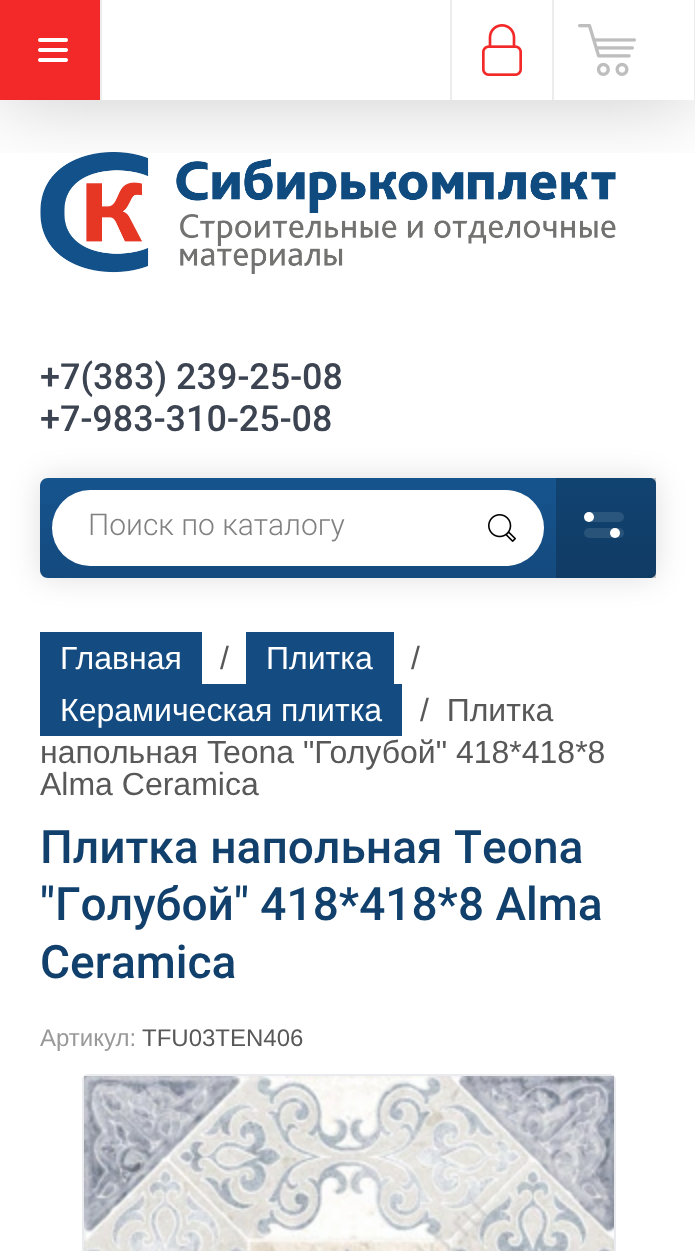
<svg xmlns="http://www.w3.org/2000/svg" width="695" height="1251">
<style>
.a{font:500 36px Roboto;fill:#3c4452}
.b{font:300 30px Roboto;fill:#818181}
.c{font:32px Liberation Sans;fill:#fff}
.d{font:32px Liberation Sans;fill:#585858}
.e{font:500 46px Roboto;fill:#11406c}
.f{font:24px Liberation Sans;fill:#999}
.g{font:24px Liberation Sans;fill:#585858}
</style>
<defs>
<clipPath id="clip1"><path d="M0 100h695v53H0z"/></clipPath>
<linearGradient id="g1" gradientUnits="userSpaceOnUse" x1="348" y1="578" x2="348" y2="478"><stop offset="0" stop-color="#144a7e"/><stop offset="1" stop-color="#16548e"/></linearGradient>
</defs>
<rect width="100%" height="100%" fill="#fff"/>
<image href="4.png" x="40" y="152" width="576" height="122"/>
<g clip-path="url(#clip1)">
<path fill="#00000033" filter="blur(40px)" d="M0 2h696v100H0z"/>
</g>
<path fill="#f32929" d="M0 0h100v100H0z"/>
<image href="1.png" x="38" y="38" width="30" height="24"/>
<path fill="#ececec" d="M100 0h2v100H100z"/>
<path fill="#ececec" d="M450 0h2v100H450z"/>
<path fill="#ececec" d="M552 0h2v100H552z"/>
<image href="2.png" x="482" y="24" width="40" height="52"/>
<path fill="#ececec" d="M694 0h1v100H694z"/>
<image href="3.png" x="578" y="24" width="58" height="52"/>
<rect fill="#00000021" filter="blur(15px)" x="40" y="478" width="616" height="100" rx="8"/>
<path fill="url(#g1)" d="M48 478h602c3.5 0 6 2.5 6 6v88c0 3.5-2.5 6-6 6h-602c-4.5 0-8-3.5-8-8v-84c0-4.5 3.5-8 8-8z"/>
<rect fill="#fff" x="52" y="490" width="492" height="76" rx="38"/>
<image href="5.png" x="488" y="514" width="28" height="28"/>
<path fill="#00000033" d="M556 478h100v100H556z"/>
<rect fill="#2a557c" x="584" y="512" width="40" height="10" rx="5"/>
<circle fill="#fff" cx="589" cy="517" r="5"/>
<rect fill="#2a537a" x="584" y="528" width="40" height="10" rx="5"/>
<circle fill="#fff" cx="615" cy="533" r="5"/>
<path fill="#144c82" d="M40 632h162v52H40z"/>
<path fill="#144c82" d="M246 632h148v52H246z"/>
<path fill="#144c82" d="M40 684h362v52H40z"/>
<rect fill="none" stroke="#e9ebee" stroke-width="2" x="83" y="1075" width="532" height="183" rx="5"/>
<image href="6.png" x="84" y="1076" width="530" height="175"/>
<text class="a" x="40" y="389">+7(383) 239-25-08</text>
<text class="a" x="40" y="431">+7-983-310-25-08</text>
<text class="b" x="88" y="535">Поиск по каталогу</text>
<text class="c" x="60" y="669">Главная</text>
<text class="d" x="220" y="669">/</text>
<text class="c" x="266" y="669">Плитка</text>
<text class="d" x="411" y="669">/</text>
<text class="c" x="60" y="721">Керамическая плитка</text>
<text class="d" xml:space="preserve" x="420" y="721">/  Плитка</text>
<text class="d" x="40" y="763">напольная Teona "Голубой" 418*418*8</text>
<text class="d" x="40" y="795">Alma Ceramica</text>
<text class="e" x="40" y="863">Плитка напольная Teona</text>
<text class="e" x="40" y="920">"Голубой" 418*418*8 Alma</text>
<text class="e" x="40" y="978">Ceramica</text>
<text class="f" x="40" y="1046">Артикул:</text>
<text class="g" x="142" y="1046">TFU03TEN406</text>
</svg>
